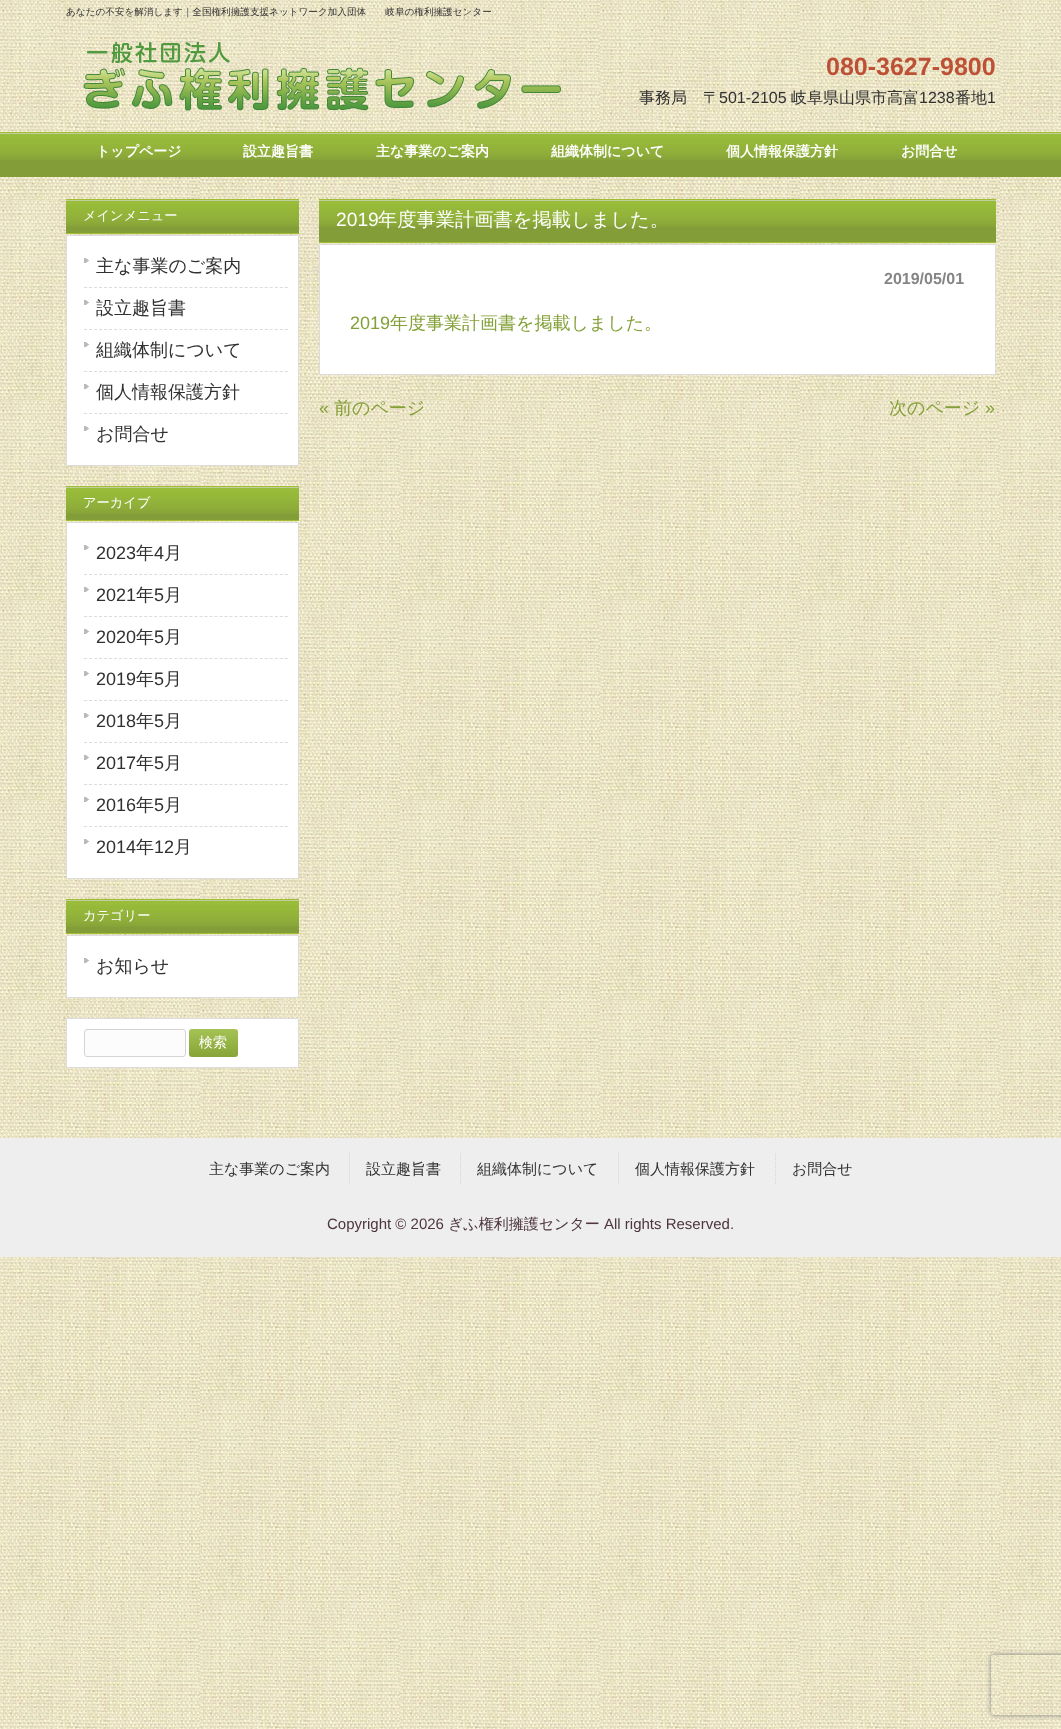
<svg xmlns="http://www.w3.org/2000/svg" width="1061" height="1729">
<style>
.a{font:500 9.6px WenQuanYi Zen Hei;fill:#313131}
.b{font:bold 25px Liberation Sans;fill:#bd5035}
.c{font:500 16px WenQuanYi Zen Hei;fill:#313131}
.d{font:16px Liberation Sans;fill:#313131}
.e{font:bold 14px WenQuanYi Zen Hei;fill:#fff}
.f{font:500 13.25px WenQuanYi Zen Hei;fill:#fff}
.g{font:500 18px WenQuanYi Zen Hei;fill:#313131}
.h{font:18px Liberation Sans;fill:#313131}
.i{font:500 14px WenQuanYi Zen Hei;fill:#fff}
.j{font:19.25px Liberation Sans;fill:#fff}
.k{font:500 19.25px WenQuanYi Zen Hei;fill:#fff}
.l{font:bold 16px Liberation Sans;fill:#858585}
.m{font:18px Liberation Sans;fill:#84a038}
.n{font:500 18px WenQuanYi Zen Hei;fill:#84a038}
.o{font:500 15px WenQuanYi Zen Hei;fill:#313131}
.p{font:15px Liberation Sans;fill:#4d363c}
.q{font:500 15px WenQuanYi Zen Hei;fill:#4d363c}
</style>
<defs>
<linearGradient id="g1" gradientUnits="userSpaceOnUse" x1="214" y1="1029" x2="214" y2="1057"><stop offset="0" stop-color="#a5c254"/><stop offset="1" stop-color="#87a438"/></linearGradient>
<clipPath id="clip1"><path d="M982 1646h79v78h-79zm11 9h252c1 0 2 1 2 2v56c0 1-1 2-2 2h-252c-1 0-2-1-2-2v-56c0-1 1-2 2-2z" clip-rule="evenodd"/></clipPath>
</defs>
<rect width="100%" height="100%" fill="#fff"/>
<image href="1.png" x="0" y="0" width="1061" height="1729"/>
<image href="2.png" x="83" y="41" width="478" height="70"/>
<path fill="#839e39" d="M0 160h1061v17H0z"/>
<image href="3.png" x="0" y="132" width="1061" height="28"/>
<path fill="#839e39" d="M66 227h233v6H66z"/>
<image href="4.png" x="66" y="199" width="233" height="28"/>
<path fill="#a2bd34" d="M66 233h233v1H66z"/>
<path fill="#fff" stroke="#dcdcdc" d="M66.5 235.5h232v230H66.5z"/>
<image href="5.png" x="84" y="258" width="5" height="5"/>
<path fill="none" stroke="#dcdcdc" stroke-dasharray="3 2.02" d="M84 287.5h204"/>
<image href="5.png" x="84" y="300" width="5" height="5"/>
<path fill="none" stroke="#dcdcdc" stroke-dasharray="3 2.02" d="M84 329.5h204"/>
<image href="5.png" x="84" y="342" width="5" height="5"/>
<path fill="none" stroke="#dcdcdc" stroke-dasharray="3 2.02" d="M84 371.5h204"/>
<image href="5.png" x="84" y="384" width="5" height="5"/>
<path fill="none" stroke="#dcdcdc" stroke-dasharray="3 2.02" d="M84 413.5h204"/>
<image href="5.png" x="84" y="426" width="5" height="5"/>
<path fill="#839e39" d="M66 514h233v6H66z"/>
<image href="4.png" x="66" y="486" width="233" height="28"/>
<path fill="#a2bd34" d="M66 520h233v1H66z"/>
<path fill="#fff" stroke="#dcdcdc" d="M66.5 522.5h232v356H66.5z"/>
<image href="5.png" x="84" y="545" width="5" height="5"/>
<path fill="none" stroke="#dcdcdc" stroke-dasharray="3 2.02" d="M84 574.5h204"/>
<image href="5.png" x="84" y="587" width="5" height="5"/>
<path fill="none" stroke="#dcdcdc" stroke-dasharray="3 2.02" d="M84 616.5h204"/>
<image href="5.png" x="84" y="629" width="5" height="5"/>
<path fill="none" stroke="#dcdcdc" stroke-dasharray="3 2.02" d="M84 658.5h204"/>
<image href="5.png" x="84" y="671" width="5" height="5"/>
<path fill="none" stroke="#dcdcdc" stroke-dasharray="3 2.02" d="M84 700.5h204"/>
<image href="5.png" x="84" y="713" width="5" height="5"/>
<path fill="none" stroke="#dcdcdc" stroke-dasharray="3 2.02" d="M84 742.5h204"/>
<image href="5.png" x="84" y="755" width="5" height="5"/>
<path fill="none" stroke="#dcdcdc" stroke-dasharray="3 2.02" d="M84 784.5h204"/>
<image href="5.png" x="84" y="797" width="5" height="5"/>
<path fill="none" stroke="#dcdcdc" stroke-dasharray="3 2.02" d="M84 826.5h204"/>
<image href="5.png" x="84" y="839" width="5" height="5"/>
<path fill="#839e39" d="M66 927h233v6H66z"/>
<image href="4.png" x="66" y="899" width="233" height="28"/>
<path fill="#a2bd34" d="M66 933h233v1H66z"/>
<path fill="#fff" stroke="#dcdcdc" d="M66.5 935.5h232v62H66.5z"/>
<image href="5.png" x="84" y="958" width="5" height="5"/>
<path fill="#fff" stroke="#dcdcdc" d="M66.5 1018.5h232v49H66.5z"/>
<rect fill="#fcfcfc" stroke="#d4d4d7" x="84.5" y="1029.5" width="101" height="27" rx="2.5"/>
<rect fill="url(#g1)" x="189" y="1029" width="49" height="28" rx="3"/>
<path fill="#839e39" d="M319 227h677v15H319z"/>
<image href="6.png" x="319" y="199" width="677" height="28"/>
<path fill="#a2bd34" d="M319 242h677v1H319z"/>
<path fill="#fff" stroke="#dcdcdc" d="M319.5 244.5h676v130H319.5z"/>
<path fill="#eee" d="M0 1138h1061v119H0z"/>
<path fill="none" stroke="#d5d5d5" stroke-dasharray="1 1" d="M349.5 1153v32"/>
<path fill="none" stroke="#d5d5d5" stroke-dasharray="1 1" d="M460.5 1153v32"/>
<path fill="none" stroke="#d5d5d5" stroke-dasharray="1 1" d="M618.5 1153v32"/>
<path fill="none" stroke="#d5d5d5" stroke-dasharray="1 1" d="M775.5 1153v32"/>
<g clip-path="url(#clip1)">
<rect fill="#808080" filter="blur(2.5px)" x="991" y="1655" width="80" height="60" rx="2"/>
</g>
<text class="a" x="66" y="15">あなたの不安を解消します｜全国権利擁護支援ネットワーク加入団体　　岐阜の権利擁護センター</text>
<text class="b" x="826" y="75">080-3627-9800</text>
<text class="c" x="639" y="103">事務局　〒</text>
<text class="d" x="719" y="103">501-2105</text>
<text class="c" x="791" y="103">岐阜県山県市高富</text>
<text class="d" x="919" y="103">1238</text>
<text class="c" x="955" y="103">番地</text>
<text class="d" x="987" y="103">1</text>
<text class="e" x="96" y="156">トップページ</text>
<text class="e" x="243" y="156">設立趣旨書</text>
<text class="e" x="376" y="156">主な事業のご案内</text>
<text class="e" x="551" y="156">組織体制について</text>
<text class="e" x="726" y="156">個人情報保護方針</text>
<text class="e" x="901" y="156">お問合せ</text>
<text class="f" x="83" y="220">メインメニュー</text>
<text class="g" x="96" y="272">主な事業のご案内</text>
<text class="g" x="96" y="314">設立趣旨書</text>
<text class="g" x="96" y="356">組織体制について</text>
<text class="g" x="96" y="398">個人情報保護方針</text>
<text class="g" x="96" y="440">お問合せ</text>
<text class="f" x="83" y="507">アーカイブ</text>
<text class="h" x="96" y="559">2023</text>
<text class="g" x="136" y="559">年</text>
<text class="h" x="154" y="559">4</text>
<text class="g" x="164" y="559">月</text>
<text class="h" x="96" y="601">2021</text>
<text class="g" x="136" y="601">年</text>
<text class="h" x="154" y="601">5</text>
<text class="g" x="164" y="601">月</text>
<text class="h" x="96" y="643">2020</text>
<text class="g" x="136" y="643">年</text>
<text class="h" x="154" y="643">5</text>
<text class="g" x="164" y="643">月</text>
<text class="h" x="96" y="685">2019</text>
<text class="g" x="136" y="685">年</text>
<text class="h" x="154" y="685">5</text>
<text class="g" x="164" y="685">月</text>
<text class="h" x="96" y="727">2018</text>
<text class="g" x="136" y="727">年</text>
<text class="h" x="154" y="727">5</text>
<text class="g" x="164" y="727">月</text>
<text class="h" x="96" y="769">2017</text>
<text class="g" x="136" y="769">年</text>
<text class="h" x="154" y="769">5</text>
<text class="g" x="164" y="769">月</text>
<text class="h" x="96" y="811">2016</text>
<text class="g" x="136" y="811">年</text>
<text class="h" x="154" y="811">5</text>
<text class="g" x="164" y="811">月</text>
<text class="h" x="96" y="853">2014</text>
<text class="g" x="136" y="853">年</text>
<text class="h" x="154" y="853">12</text>
<text class="g" x="174" y="853">月</text>
<text class="f" x="83" y="920">カテゴリー</text>
<text class="g" x="96" y="972">お知らせ</text>
<text class="i" x="199" y="1047">検索</text>
<text class="j" x="336" y="226">2019</text>
<text class="k" x="378" y="226">年度事業計画書を掲載しました。</text>
<text class="l" x="884" y="284">2019/05/01</text>
<text class="m" x="350" y="329">2019</text>
<text class="n" x="390" y="329">年度事業計画書を掲載しました。</text>
<text class="m" x="319" y="414">«</text>
<text class="n" x="334" y="414">前のページ</text>
<text class="n" x="889" y="414">次のページ</text>
<text class="m" x="985" y="414">»</text>
<text class="o" x="209" y="1174">主な事業のご案内</text>
<text class="o" x="366" y="1174">設立趣旨書</text>
<text class="o" x="477" y="1174">組織体制について</text>
<text class="o" x="635" y="1174">個人情報保護方針</text>
<text class="o" x="792" y="1174">お問合せ</text>
<text class="p" x="327" y="1229">Copyright © 2026</text>
<text class="q" x="448" y="1229">ぎふ権利擁護センター</text>
<text class="p" x="604" y="1229">All rights Reserved.</text>
</svg>
